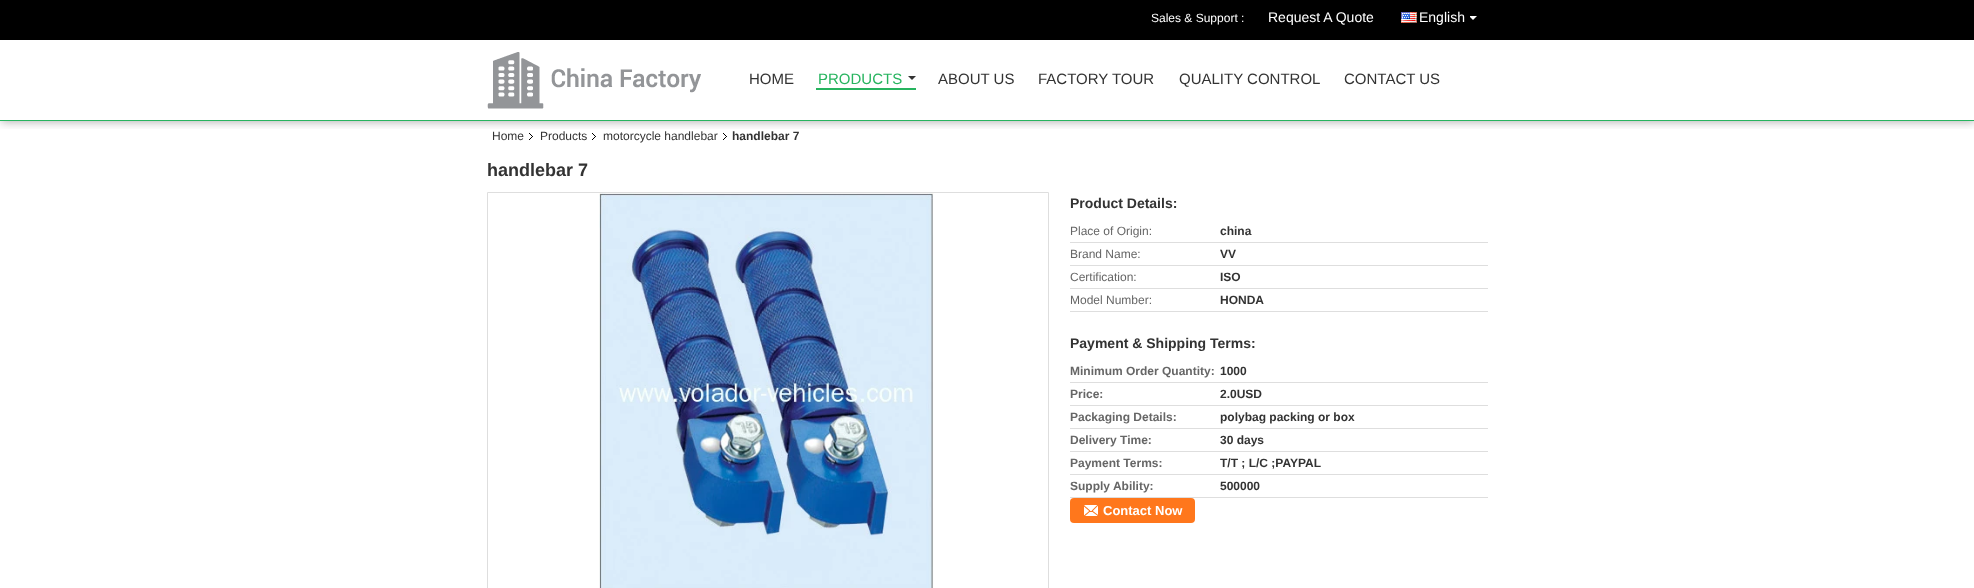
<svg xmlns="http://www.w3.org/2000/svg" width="1974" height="588">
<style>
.a{font:12px Liberation Sans;fill:#fff}
.b{font:14px Liberation Sans;fill:#fff}
.c{font:15px Liberation Sans;fill:#333}
.d{font:15px Liberation Sans;fill:#27b45f}
.e{font:12px Liberation Sans;fill:#333}
.f{font:bold 12px Liberation Sans;fill:#333}
.g{font:bold 18px Liberation Sans;fill:#333}
.h{font:bold 14px Liberation Sans;fill:#333}
.i{font:12px Liberation Sans;fill:#666}
.j{font:bold 12px Liberation Sans;fill:#666}
.k{font:bold 13px Liberation Sans;fill:#fff}
</style>
<defs>
<clipPath id="clip1"><path d="M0 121h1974v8H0z"/></clipPath>
</defs>
<rect width="100%" height="100%" fill="#fff"/>
<g clip-path="url(#clip1)">
<path fill="#0000004d" filter="blur(5px)" d="M1 1h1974v121H1z"/>
</g>
<path fill="#27b45f" d="M0 120h1974v1H0z"/>
<path fill="#000" d="M0 0h1974v40H0z"/>
<image href="1.png" x="1401" y="12" width="16" height="11"/>
<image href="2.png" x="1470" y="16" width="7" height="4"/>
<image href="3.png" x="487" y="52" width="214" height="57"/>
<path fill="#27b45f" d="M816 88h100v2H816z"/>
<path fill="#333" d="M908 76h8l-4 4z"/>
<image href="4.png" x="529" y="133" width="4" height="7"/>
<image href="4.png" x="592" y="133" width="4" height="7"/>
<image href="4.png" x="723" y="133" width="4" height="7"/>
<path fill="none" stroke="#dedede" d="M487.5 192.5h561v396H487.5z"/>
<image href="5.png" x="599" y="193" width="335" height="395"/>
<path fill="#dedede" d="M1070 242h418v1H1070z"/>
<path fill="#dedede" d="M1070 265h418v1H1070z"/>
<path fill="#dedede" d="M1070 288h418v1H1070z"/>
<path fill="#dedede" d="M1070 311h418v1H1070z"/>
<path fill="#dedede" d="M1070 382h418v1H1070z"/>
<path fill="#dedede" d="M1070 405h418v1H1070z"/>
<path fill="#dedede" d="M1070 428h418v1H1070z"/>
<path fill="#dedede" d="M1070 451h418v1H1070z"/>
<path fill="#dedede" d="M1070 474h418v1H1070z"/>
<path fill="#dedede" d="M1070 497h418v1H1070z"/>
<rect fill="#ff771c" x="1070" y="498" width="125" height="25" rx="4"/>
<image href="6.png" x="1084" y="505" width="14" height="11"/>
<text class="a" x="1151" y="22">Sales &amp; Support :</text>
<text class="b" x="1268" y="22">Request A Quote</text>
<text class="b" x="1419" y="22">English</text>
<text class="c" x="749" y="84">HOME</text>
<text class="d" x="818" y="84">PRODUCTS</text>
<text class="c" x="938" y="84">ABOUT US</text>
<text class="c" x="1038" y="84">FACTORY TOUR</text>
<text class="c" x="1179" y="84">QUALITY CONTROL</text>
<text class="c" x="1344" y="84">CONTACT US</text>
<text class="e" x="492" y="140">Home</text>
<text class="e" x="540" y="140">Products</text>
<text class="e" x="603" y="140">motorcycle handlebar</text>
<text class="f" x="732" y="140">handlebar 7</text>
<text class="g" x="487" y="176">handlebar 7</text>
<text class="h" x="1070" y="208">Product Details:</text>
<text class="i" x="1070" y="235">Place of Origin:</text>
<text class="f" x="1220" y="235">china</text>
<text class="i" x="1070" y="258">Brand Name:</text>
<text class="f" x="1220" y="258">VV</text>
<text class="i" x="1070" y="281">Certification:</text>
<text class="f" x="1220" y="281">ISO</text>
<text class="i" x="1070" y="304">Model Number:</text>
<text class="f" x="1220" y="304">HONDA</text>
<text class="h" x="1070" y="348">Payment &amp; Shipping Terms:</text>
<text class="j" x="1070" y="375">Minimum Order Quantity:</text>
<text class="f" x="1220" y="375">1000</text>
<text class="j" x="1070" y="398">Price:</text>
<text class="f" x="1220" y="398">2.0USD</text>
<text class="j" x="1070" y="421">Packaging Details:</text>
<text class="f" x="1220" y="421">polybag packing or box</text>
<text class="j" x="1070" y="444">Delivery Time:</text>
<text class="f" x="1220" y="444">30 days</text>
<text class="j" x="1070" y="467">Payment Terms:</text>
<text class="f" x="1220" y="467">T/T ; L/C ;PAYPAL</text>
<text class="j" x="1070" y="490">Supply Ability:</text>
<text class="f" x="1220" y="490">500000</text>
<text class="k" x="1103" y="515">Contact Now</text>
</svg>
